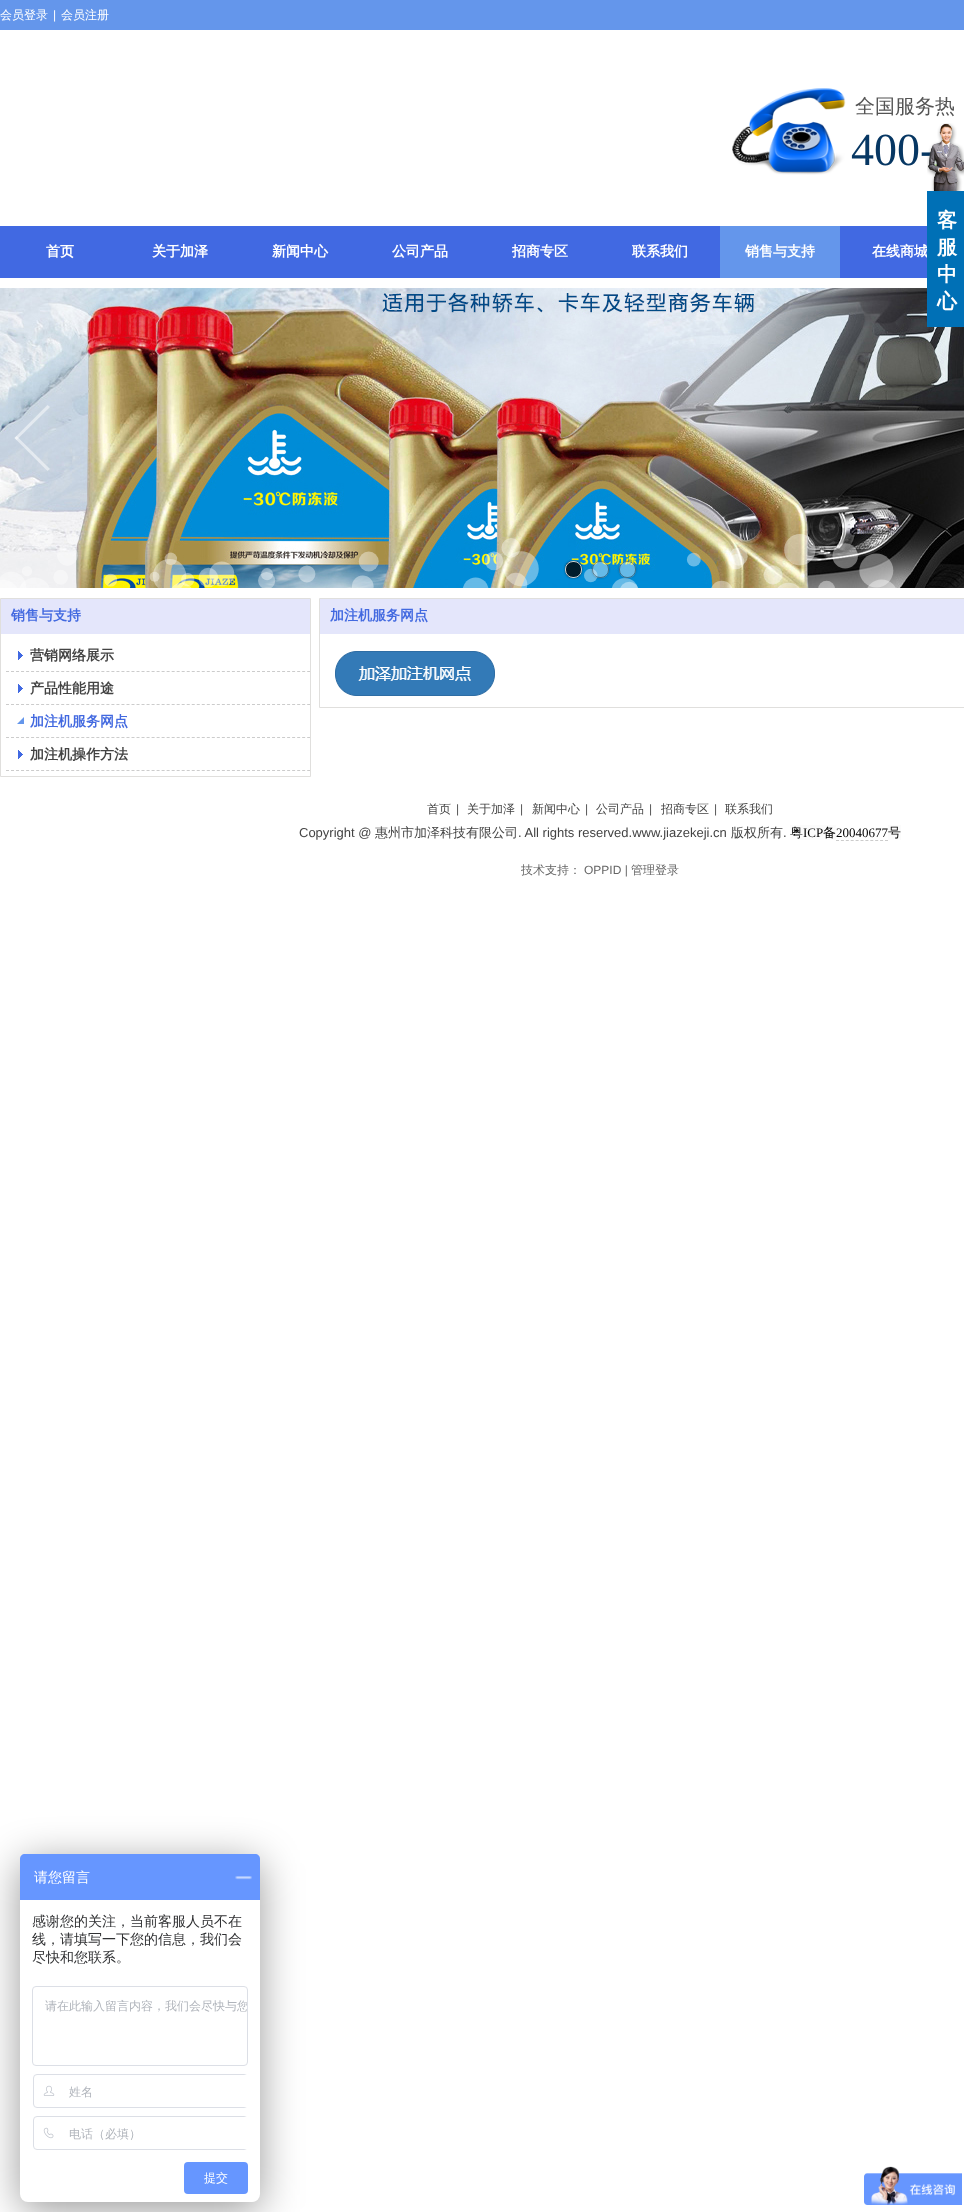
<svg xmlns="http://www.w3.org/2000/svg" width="964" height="2212">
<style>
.a{font:500 12px WenQuanYi Zen Hei;fill:#fff}
.b{font:12px Liberation Sans;fill:#fff}
.c{font:bold 14px WenQuanYi Zen Hei;fill:#fff}
.d{font:500 20px WenQuanYi Zen Hei;fill:#545454}
.e{font:46px Liberation Serif;fill:#073763}
.f{font:bold 20px WenQuanYi Zen Hei;fill:#fff}
.g{font:bold 14px WenQuanYi Zen Hei;fill:#4269e0}
.h{font:bold 14px WenQuanYi Zen Hei;fill:#434343}
.i{font:500 12px WenQuanYi Zen Hei;fill:#434343}
.j{font:12px Liberation Sans;fill:#545454}
.k{font:13px Liberation Sans;fill:#434343}
.l{font:500 13px WenQuanYi Zen Hei;fill:#434343}
.m{font:500 13px WenQuanYi Zen Hei;fill:#000}
.n{font:13px Liberation Serif;fill:#000}
.o{font:500 12px WenQuanYi Zen Hei;fill:#666}
.p{font:12px Liberation Sans;fill:#666}
.q{font:500 14px WenQuanYi Zen Hei;fill:#fff}
.r{font:500 14px WenQuanYi Zen Hei;fill:#303133}
.s{font:500 12px WenQuanYi Zen Hei;fill:#b0b4bb}
</style>
<defs>
<clipPath id="clip1"><path d="M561 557h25v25h-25zm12 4h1c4.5 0 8 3.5 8 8v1c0 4.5-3.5 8-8 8h-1c-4.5 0-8-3.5-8-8v-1c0-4.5 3.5-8 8-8z" clip-rule="evenodd"/></clipPath>
<clipPath id="clip2"><path d="M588 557h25v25h-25zm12 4h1c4.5 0 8 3.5 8 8v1c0 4.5-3.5 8-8 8h-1c-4.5 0-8-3.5-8-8v-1c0-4.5 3.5-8 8-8z" clip-rule="evenodd"/></clipPath>
<clipPath id="clip3"><path d="M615 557h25v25h-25zm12 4h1c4.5 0 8 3.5 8 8v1c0 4.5-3.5 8-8 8h-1c-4.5 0-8-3.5-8-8v-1c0-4.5 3.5-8 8-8z" clip-rule="evenodd"/></clipPath>
<clipPath id="clip4"><path d="M6 639h304v33H6z"/></clipPath>
<clipPath id="clip5"><path d="M6 672h304v33H6z"/></clipPath>
<clipPath id="clip6"><path d="M6 705h304v33H6z"/></clipPath>
<clipPath id="clip7"><path d="M6 738h304v33H6z"/></clipPath>
<clipPath id="clip8"><rect x="33" y="1987" width="214" height="78" rx="3"/></clipPath>
</defs>
<rect width="100%" height="100%" fill="#fff"/>
<path fill="#6496eb" d="M0 0h964v30H0z"/>
<path fill="#4169e2" d="M0 226h927v52H0z"/>
<path fill="#6496eb" d="M720 226h120v52H720z"/>
<image href="1.png" x="0" y="288" width="964" height="300"/>
<image href="2.png" x="0" y="525" width="896" height="63"/>
<path fill="#ffffff80" d="M14.5 438l33-33l2.5 2l-33.5 33z"/>
<path fill="#ffffff80" d="M14.5 438l2-2l33.5 33l-2.5 2z"/>
<g clip-path="url(#clip1)">
<rect fill="#0000007a" filter="blur(1px)" x="565" y="561" width="17" height="17" rx="8"/>
</g>
<rect fill="#000000cc" x="565" y="561" width="17" height="17" rx="8"/>
<rect fill="none" stroke="#ffffffcc" x="565.5" y="561.5" width="16" height="16" rx="7.5"/>
<g clip-path="url(#clip2)">
<rect fill="#0000003d" filter="blur(1px)" x="592" y="561" width="17" height="17" rx="8"/>
</g>
<rect fill="#ffffff66" x="592" y="561" width="17" height="17" rx="8"/>
<rect fill="none" stroke="#00000066" x="592.5" y="561.5" width="16" height="16" rx="7.5"/>
<g clip-path="url(#clip3)">
<rect fill="#0000003d" filter="blur(1px)" x="619" y="561" width="17" height="17" rx="8"/>
</g>
<rect fill="#ffffff66" x="619" y="561" width="17" height="17" rx="8"/>
<rect fill="none" stroke="#00000066" x="619.5" y="561.5" width="16" height="16" rx="7.5"/>
<image href="3.png" x="732" y="88" width="114" height="87"/>
<path fill="none" stroke="#e0dfdd" d="M0.5 598.5h310v178H0.5z"/>
<path fill="#e4e6fb" d="M1 599h309v35H1z"/>
<g clip-path="url(#clip4)">
<path fill="none" stroke="#ccc" stroke-dasharray="3 2.02" d="M6 671.5h309"/>
</g>
<image href="5.png" x="18" y="651" width="5" height="9"/>
<g clip-path="url(#clip5)">
<path fill="none" stroke="#ccc" stroke-dasharray="3 2.02" d="M6 704.5h309"/>
</g>
<image href="5.png" x="18" y="684" width="5" height="9"/>
<g clip-path="url(#clip6)">
<path fill="none" stroke="#ccc" stroke-dasharray="3 2.02" d="M6 737.5h309"/>
</g>
<image href="6.png" x="17" y="717" width="7" height="7"/>
<g clip-path="url(#clip7)">
<path fill="none" stroke="#ccc" stroke-dasharray="3 2.02" d="M6 770.5h309"/>
</g>
<image href="5.png" x="18" y="750" width="5" height="9"/>
<path fill="none" stroke="#e0dfdd" d="M319.5 598.5h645v109H319.5z"/>
<path fill="#e4e6fb" d="M320 599h644v35H320z"/>
<image href="7.png" x="335" y="651" width="160" height="45"/>
<path fill="#fbfbfb" d="M790 825h46v15H790z"/>
<path fill="none" stroke="#ccc" stroke-dasharray="3 1.9" d="M836 840.5h52"/>
<path fill="#fbfbfb" d="M888 825h13v15H888z"/>
<rect fill="#00000066" filter="blur(20px)" x="20" y="1862" width="240" height="348" rx="8"/>
<rect fill="#fff" x="20" y="1854" width="240" height="348" rx="8"/>
<path fill="#6696ff" d="M25 1854h230c3 0 5 2 5 5v41h-240v-41c0-3 2-5 5-5z"/>
<image href="8.png" x="235" y="1876" width="17" height="4"/>
<rect fill="none" stroke="#dcdfe6" x="32.5" y="1986.5" width="215" height="79" rx="3.5"/>
<rect fill="none" stroke="#dcdfe6" x="33.5" y="2074.5" width="214" height="33" rx="3.5"/>
<image href="9.png" x="43" y="2085" width="12" height="11"/>
<path fill="#fff" d="M244 2075h4v32H244z"/>
<rect fill="none" stroke="#dcdfe6" x="33.5" y="2116.5" width="214" height="33" rx="3.5"/>
<image href="10.png" x="43" y="2127" width="11" height="12"/>
<path fill="#fff" d="M244 2117h4v32H244z"/>
<rect fill="#6696ff" x="184" y="2162" width="64" height="32" rx="4"/>
<image href="11.png" x="864" y="2166" width="98" height="39"/>
<text class="a" x="0" y="19">会员登录</text>
<text class="b" x="53" y="19">|</text>
<text class="a" x="61" y="19">会员注册</text>
<text class="c" x="46" y="256">首页</text>
<text class="c" x="152" y="256">关于加泽</text>
<text class="c" x="272" y="256">新闻中心</text>
<text class="c" x="392" y="256">公司产品</text>
<text class="c" x="512" y="256">招商专区</text>
<text class="c" x="632" y="256">联系我们</text>
<text class="c" x="745" y="256">销售与支持</text>
<text class="c" x="872" y="256">在线商城</text>
<text class="d" x="855" y="113">全国服务热</text>
<text class="e" x="851" y="165">400-</text>
<image href="4.png" x="927" y="123" width="37" height="68"/>
<path fill="#0070b6" d="M927 191h37v136H927z"/>
<text class="f" x="937" y="227">客</text>
<text class="f" x="937" y="254">服</text>
<text class="f" x="937" y="281">中</text>
<text class="f" x="937" y="308">心</text>
<text class="g" x="11" y="620">销售与支持</text>
<text class="h" x="30" y="660">营销网络展示</text>
<text class="h" x="30" y="693">产品性能用途</text>
<text class="g" x="30" y="726">加注机服务网点</text>
<text class="h" x="30" y="759">加注机操作方法</text>
<text class="g" x="330" y="620">加注机服务网点</text>
<text class="i" x="427" y="813">首页</text>
<text class="j" x="456" y="813">|</text>
<text class="i" x="467" y="813">关于加泽</text>
<text class="j" x="520" y="813">|</text>
<text class="i" x="532" y="813">新闻中心</text>
<text class="j" x="585" y="813">|</text>
<text class="i" x="596" y="813">公司产品</text>
<text class="j" x="649" y="813">|</text>
<text class="i" x="661" y="813">招商专区</text>
<text class="j" x="714" y="813">|</text>
<text class="i" x="725" y="813">联系我们</text>
<text class="k" x="299" y="837">Copyright @</text>
<text class="l" x="375" y="837">惠州市加泽科技有限公司</text>
<text class="k" x="518" y="837">. All rights reserved.www.jiazekeji.cn</text>
<text class="l" x="731" y="837">版权所有</text>
<text class="k" x="783" y="837">.</text>
<text class="m" x="790" y="837">粤</text>
<text class="n" x="803" y="837">ICP</text>
<text class="m" x="823" y="837">备</text>
<text class="n" x="836" y="837">20040677</text>
<text class="m" x="888" y="837">号</text>
<text class="o" x="521" y="874">技术支持：</text>
<text class="p" x="584" y="874">OPPID |</text>
<text class="o" x="631" y="874">管理登录</text>
<text class="q" x="34" y="1882">请您留言</text>
<text class="r" x="32" y="1926">感谢您的关注，当前客服人员不在</text>
<text class="r" x="32" y="1944">线，请填写一下您的信息，我们会</text>
<text class="r" x="32" y="1962">尽快和您联系。</text>
<g clip-path="url(#clip8)">
<text class="s" x="45" y="2010">请在此输入留言内容，我们会尽快与您</text>
</g>
<text class="s" x="69" y="2096">姓名</text>
<text class="s" x="69" y="2138">电话（必填）</text>
<text class="a" x="204" y="2182">提交</text>
</svg>
